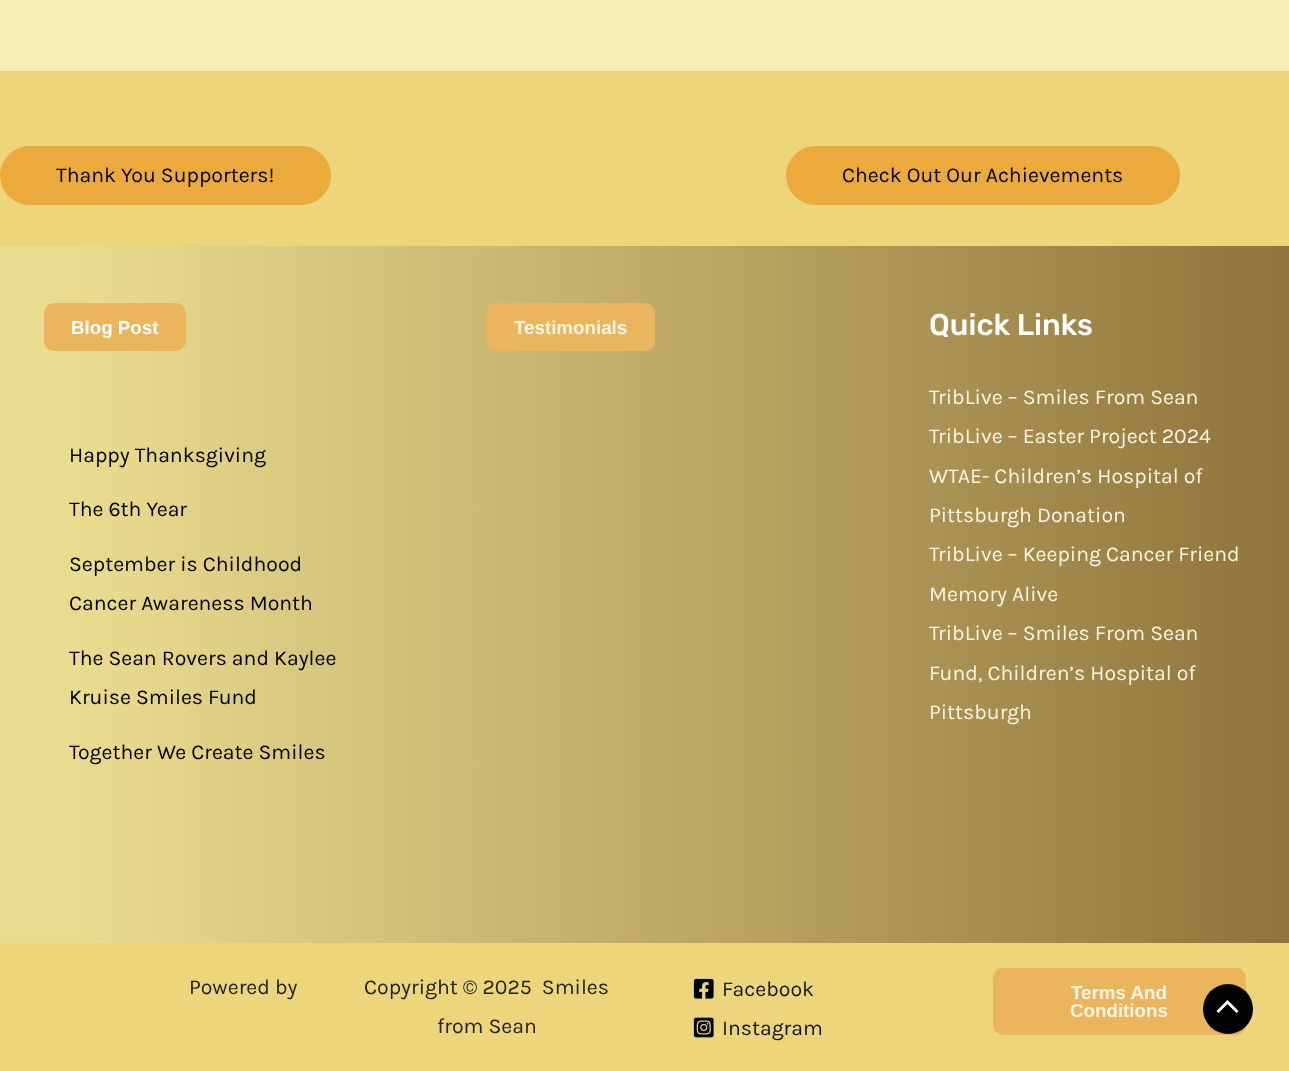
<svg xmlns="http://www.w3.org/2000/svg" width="1289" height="1071">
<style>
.a{font:21.25px Karla;fill:#020202}
.b{font:bold 18.75px Liberation Sans;fill:#fff}
.c{font:bold 18.75px Liberation Sans;fill:#faf5e5}
.d{font:500 30px Rubik;fill:#fff}
.e{font:21.25px Karla;fill:#faf5e5}
.f{font:21.25px Karla;fill:#222}
.g{font:21.25px Karla;fill:#0f172a}
</style>
<defs>
<linearGradient id="g1" gradientUnits="userSpaceOnUse" x1="0" y1="594" x2="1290" y2="594"><stop offset="0.06" stop-color="#eadc8f"/><stop offset="1" stop-color="#8f743b"/><stop offset="1" stop-color="#e0cf8a"/><stop offset="1" stop-color="#0693e3"/><stop offset="1" stop-color="#9b51e0"/></linearGradient>
</defs>
<rect width="100%" height="100%" fill="#f7eeb4"/>
<path fill="#edd57b" d="M0 71h1289v1000H0z"/>
<rect fill="#eca93c" y="146" width="331" height="59" rx="29.5"/>
<rect fill="#eca93c" x="786" y="146" width="394" height="59" rx="29.5"/>
<path fill="url(#g1)" d="M0 246h1289v697H0z"/>
<rect fill="#ebb55d" stroke="#ebb55d" stroke-width="3" x="45.5" y="304.5" width="139" height="45" rx="8.5"/>
<rect fill="#ebb55d" stroke="#ebb55d" stroke-width="3" x="487.5" y="304.5" width="166" height="45" rx="8.5"/>
<image href="1.png" x="693" y="978" width="21" height="21"/>
<image href="2.png" x="693" y="1017" width="21" height="21"/>
<rect fill="#ebb55d" stroke="#ebb55d" stroke-width="3" x="994.5" y="969.5" width="250" height="64" rx="8.5"/>
<circle fill="#020202" cx="1228" cy="1009" r="25"/>
<path fill="#fff" d="M1238.5 1011l-11-11l-11 11l2 2l9-9l9 9z"/>
<text class="a" x="56" y="182">Thank You Supporters!</text>
<text class="a" x="842" y="182">Check Out Our Achievements</text>
<text class="b" x="71" y="334">Blog Post</text>
<text class="a" x="69" y="462">Happy Thanksgiving</text>
<text class="a" x="69" y="516">The 6th Year</text>
<text class="a" x="69" y="571">September is Childhood</text>
<text class="a" x="69" y="610">Cancer Awareness Month</text>
<text class="a" x="69" y="665">The Sean Rovers and Kaylee</text>
<text class="a" x="69" y="704">Kruise Smiles Fund</text>
<text class="a" x="69" y="759">Together We Create Smiles</text>
<text class="c" x="514" y="334">Testimonials</text>
<text class="d" x="929" y="335">Quick Links</text>
<text class="e" x="929" y="404">TribLive – Smiles From Sean</text>
<text class="e" x="929" y="443">TribLive – Easter Project 2024</text>
<text class="e" x="929" y="483">WTAE- Children’s Hospital of</text>
<text class="e" x="929" y="522">Pittsburgh Donation</text>
<text class="e" x="929" y="561">TribLive – Keeping Cancer Friend</text>
<text class="e" x="929" y="601">Memory Alive</text>
<text class="e" x="929" y="640">TribLive – Smiles From Sean</text>
<text class="e" x="929" y="680">Fund, Children’s Hospital of</text>
<text class="e" x="929" y="719">Pittsburgh</text>
<text class="f" x="189" y="994">Powered by</text>
<text class="f" xml:space="preserve" x="364" y="994">Copyright © 2025  Smiles</text>
<text class="f" x="437" y="1033">from Sean</text>
<text class="g" x="722" y="996">Facebook</text>
<text class="g" x="722" y="1035">Instagram</text>
<text class="c" x="1071" y="999">Terms And</text>
<text class="c" x="1070" y="1017">Conditions</text>
</svg>
